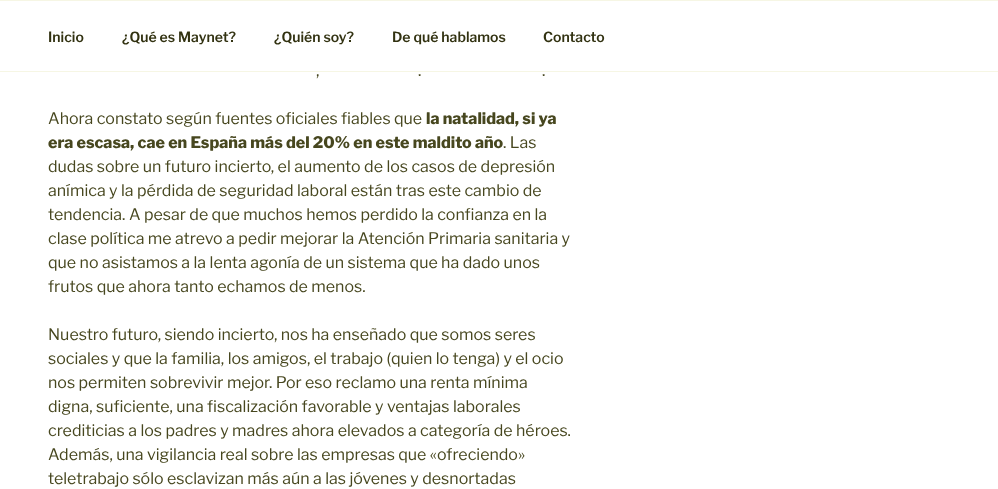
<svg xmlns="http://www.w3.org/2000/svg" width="998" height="489">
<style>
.a{font:100 14px 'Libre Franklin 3';fill:#323211}
.b{font:100 16px Libre Franklin;fill:#47471f}
.c{font:100 16px 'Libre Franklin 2';fill:#47471f}
</style>
<rect width="100%" height="100%" fill="#fff"/>
<path fill="#f6f6e4" d="M0 0h998v1H0z"/>
<path fill="#f6f6e4" d="M0 71h998v1H0z"/>
<text class="a" x="48" y="42">Inicio</text>
<text class="a" x="122" y="42">¿Qué es Maynet?</text>
<text class="a" x="274" y="42">¿Quién soy?</text>
<text class="a" x="392" y="42">De qué hablamos</text>
<text class="a" x="543" y="42">Contacto</text>
<text class="b" x="316" y="76">,</text>
<text class="b" x="418" y="76">.</text>
<text class="b" x="542" y="76">.</text>
<text class="b" x="48" y="124">Ahora constato según fuentes oficiales fiables que</text>
<text class="c" x="426" y="124">la natalidad, si ya</text>
<text class="c" x="48" y="148">era escasa, cae en España más del 20% en este maldito año</text>
<text class="b" x="503" y="148">. Las</text>
<text class="b" x="48" y="172">dudas sobre un futuro incierto, el aumento de los casos de depresión</text>
<text class="b" x="48" y="196">anímica y la pérdida de seguridad laboral están tras este cambio de</text>
<text class="b" x="48" y="220">tendencia. A pesar de que muchos hemos perdido la confianza en la</text>
<text class="b" x="48" y="244">clase política me atrevo a pedir mejorar la Atención Primaria sanitaria y</text>
<text class="b" x="48" y="268">que no asistamos a la lenta agonía de un sistema que ha dado unos</text>
<text class="b" x="48" y="292">frutos que ahora tanto echamos de menos.</text>
<text class="b" x="48" y="340">Nuestro futuro, siendo incierto, nos ha enseñado que somos seres</text>
<text class="b" x="48" y="364">sociales y que la familia, los amigos, el trabajo (quien lo tenga) y el ocio</text>
<text class="b" x="48" y="388">nos permiten sobrevivir mejor. Por eso reclamo una renta mínima</text>
<text class="b" x="48" y="412">digna, suficiente, una fiscalización favorable y ventajas laborales</text>
<text class="b" x="48" y="436">crediticias a los padres y madres ahora elevados a categoría de héroes.</text>
<text class="b" x="48" y="460">Además, una vigilancia real sobre las empresas que «ofreciendo»</text>
<text class="b" x="48" y="484">teletrabajo sólo esclavizan más aún a las jóvenes y desnortadas</text>
</svg>
